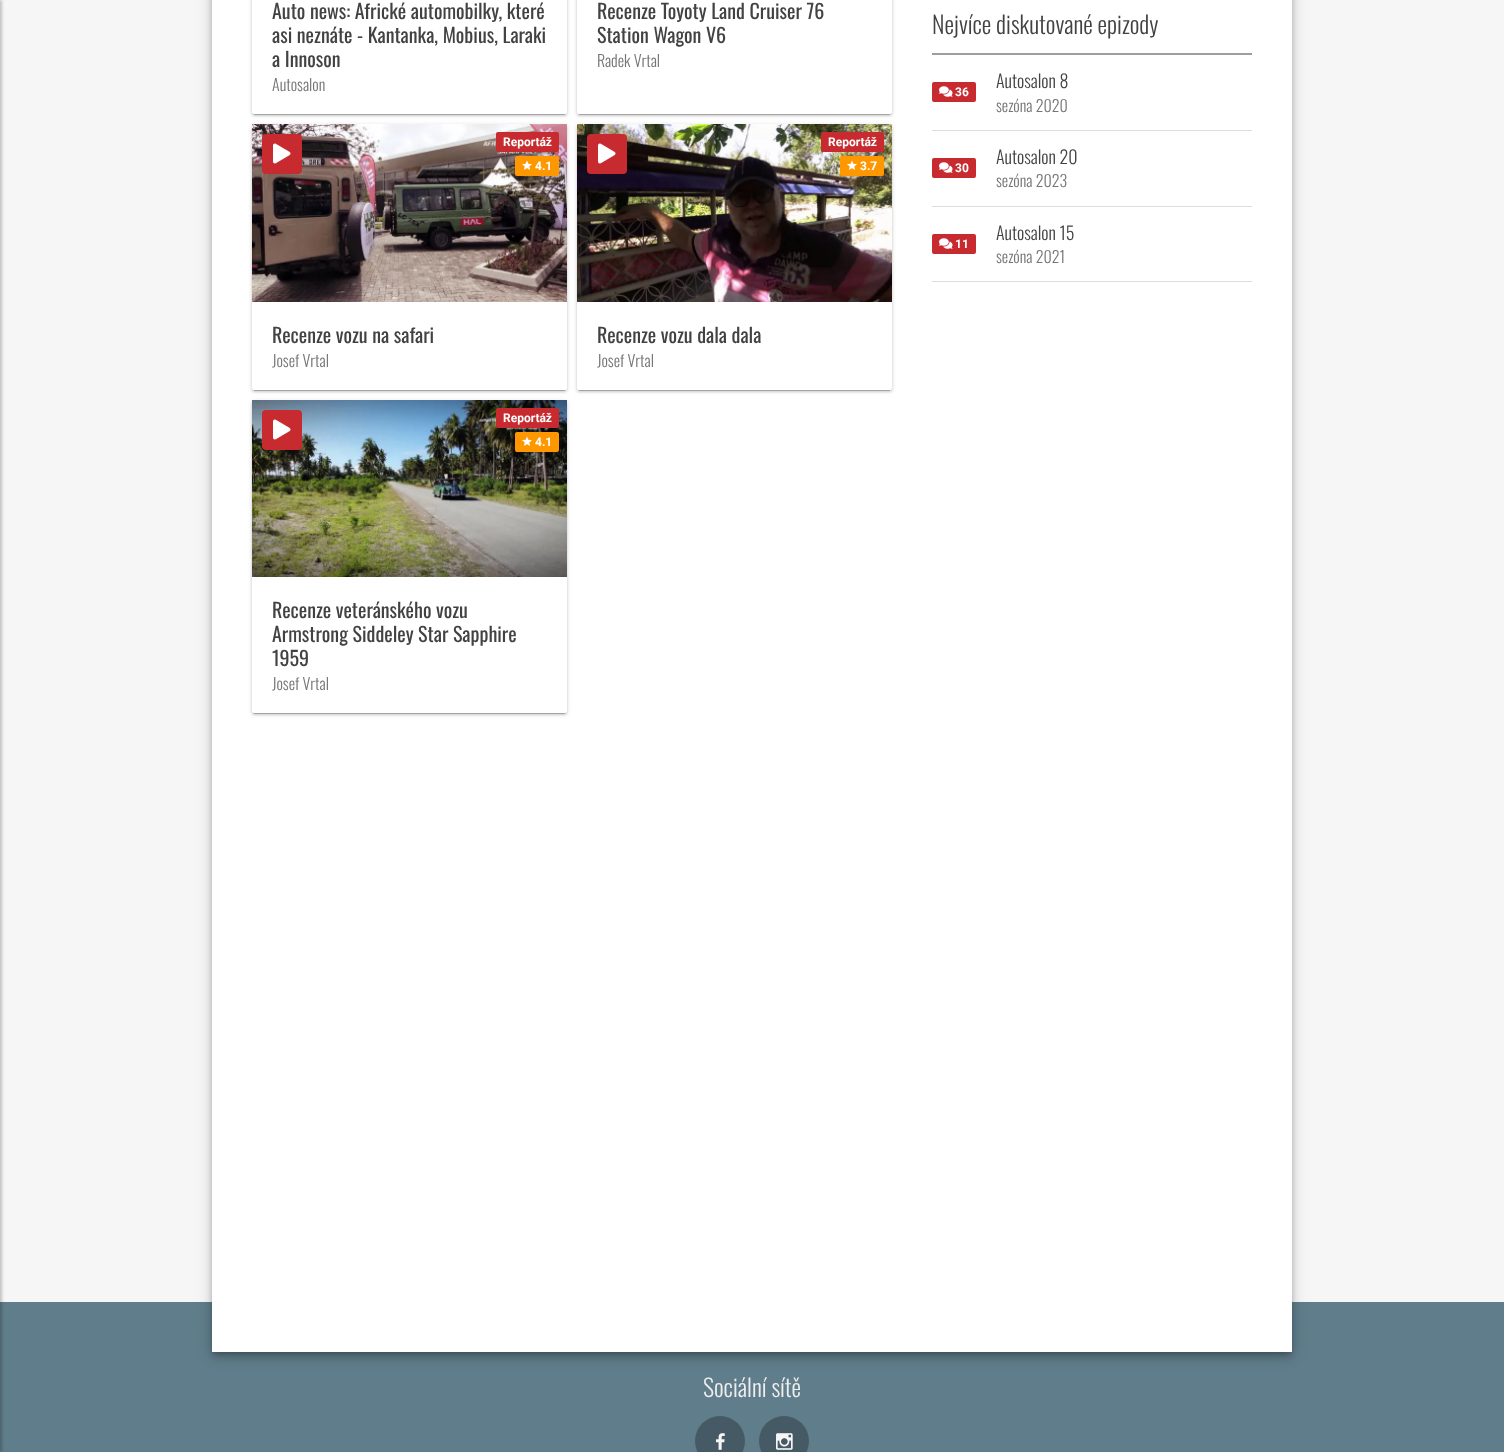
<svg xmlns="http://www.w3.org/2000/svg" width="1504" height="1452">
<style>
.a{font:20px Oswald;fill:#424242}
.b{font:300 16px Oswald;fill:#757575}
.c{font:bold 12px Roboto;fill:#fff}
.d{font:300 24px Oswald;fill:#424242}
.e{font:300 18px Oswald;fill:#424242}
.f{font:300 24px Oswald;fill:#eee}
</style>
<rect width="100%" height="100%" fill="#f6f6f6"/>
<path fill="#607d8b" d="M0 1302h1504v150H0z"/>
<path fill="#00000036" filter="blur(1.5px)" d="M-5 0h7v1452H-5z"/>
<path fill="#00000033" filter="blur(2.5px)" d="M213 -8h1078v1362H213z"/>
<path fill="#0000001f" filter="blur(9px)" d="M212 -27h1080v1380H212z"/>
<path fill="#00000024" filter="blur(5px)" d="M212 -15h1080v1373H212z"/>
<path fill="#fff" d="M212 0h1080v1352H212z"/>
<rect fill="#0000001f" filter="blur(2.5px)" x="252" y="-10" width="315" height="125" rx="2"/>
<path fill="#00000033" filter="blur(0.5px)" d="M254 -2h311v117H254z"/>
<rect fill="#00000024" filter="blur(1px)" x="252" y="-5" width="315" height="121" rx="2"/>
<rect fill="#fff" x="252" y="-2" width="315" height="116" rx="2"/>
<rect fill="#0000001f" filter="blur(2.5px)" x="577" y="-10" width="315" height="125" rx="2"/>
<path fill="#00000033" filter="blur(0.5px)" d="M579 -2h311v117H579z"/>
<rect fill="#00000024" filter="blur(1px)" x="577" y="-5" width="315" height="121" rx="2"/>
<rect fill="#fff" x="577" y="-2" width="315" height="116" rx="2"/>
<rect fill="#0000001f" filter="blur(2.5px)" x="252" y="125" width="315" height="266" rx="2"/>
<path fill="#00000033" filter="blur(0.5px)" d="M254 129h311v262H254z"/>
<rect fill="#00000024" filter="blur(1px)" x="252" y="126" width="315" height="266" rx="2"/>
<rect fill="#fff" x="252" y="124" width="315" height="266" rx="2"/>
<image href="1.png" x="252" y="124" width="315" height="178"/>
<rect fill="#c72b2f" x="262" y="134" width="40" height="40" rx="4"/>
<image href="2.png" x="273" y="143" width="18" height="21"/>
<rect fill="#c72b2f" x="496" y="132" width="63" height="20" rx="2"/>
<rect fill="#ff9800" x="515" y="156" width="44" height="20" rx="2"/>
<image href="3.png" x="522" y="160" width="10" height="10"/>
<rect fill="#0000001f" filter="blur(2.5px)" x="577" y="125" width="315" height="266" rx="2"/>
<path fill="#00000033" filter="blur(0.5px)" d="M579 129h311v262H579z"/>
<rect fill="#00000024" filter="blur(1px)" x="577" y="126" width="315" height="266" rx="2"/>
<rect fill="#fff" x="577" y="124" width="315" height="266" rx="2"/>
<image href="4.png" x="577" y="124" width="315" height="178"/>
<rect fill="#c72b2f" x="587" y="134" width="40" height="40" rx="4"/>
<image href="2.png" x="598" y="143" width="18" height="21"/>
<rect fill="#c72b2f" x="821" y="132" width="63" height="20" rx="2"/>
<rect fill="#ff9800" x="840" y="156" width="44" height="20" rx="2"/>
<image href="3.png" x="847" y="160" width="10" height="10"/>
<rect fill="#0000001f" filter="blur(2.5px)" x="252" y="401" width="315" height="313" rx="2"/>
<path fill="#00000033" filter="blur(0.5px)" d="M254 405h311v309H254z"/>
<rect fill="#00000024" filter="blur(1px)" x="252" y="402" width="315" height="313" rx="2"/>
<rect fill="#fff" x="252" y="400" width="315" height="313" rx="2"/>
<image href="5.png" x="252" y="400" width="315" height="177"/>
<rect fill="#c72b2f" x="262" y="410" width="40" height="40" rx="4"/>
<image href="2.png" x="273" y="419" width="18" height="21"/>
<rect fill="#c72b2f" x="496" y="408" width="63" height="20" rx="2"/>
<rect fill="#ff9800" x="515" y="432" width="44" height="20" rx="2"/>
<image href="3.png" x="522" y="436" width="10" height="10"/>
<path fill="#9e9e9e" d="M932 53h320v2H932z"/>
<path fill="#ddd" d="M932 130h320v1H932z"/>
<rect fill="#c72b2f" x="932" y="82" width="44" height="20" rx="2"/>
<image href="6.png" x="939" y="86" width="14" height="11"/>
<path fill="#ddd" d="M932 206h320v1H932z"/>
<rect fill="#c72b2f" x="932" y="158" width="44" height="20" rx="2"/>
<image href="6.png" x="939" y="162" width="14" height="11"/>
<path fill="#ddd" d="M932 281h320v1H932z"/>
<rect fill="#c72b2f" x="932" y="234" width="44" height="20" rx="2"/>
<image href="6.png" x="939" y="238" width="14" height="11"/>
<circle fill="#455a64" cx="720" cy="1441" r="25"/>
<image href="7.png" x="716" y="1433" width="9" height="17"/>
<circle fill="#455a64" cx="784" cy="1441" r="25"/>
<image href="8.png" x="776" y="1433" width="17" height="17"/>
<text class="a" x="272" y="19">Auto news: Africké automobilky, které</text>
<text class="a" x="272" y="43">asi neznáte - Kantanka, Mobius, Laraki</text>
<text class="a" x="272" y="67">a Innoson</text>
<text class="b" x="272" y="91">Autosalon</text>
<text class="a" x="597" y="19">Recenze Toyoty Land Cruiser 76</text>
<text class="a" x="597" y="43">Station Wagon V6</text>
<text class="b" x="597" y="67">Radek Vrtal</text>
<text class="c" x="503" y="146">Reportáž</text>
<text class="c" x="535" y="170">4.1</text>
<text class="a" x="272" y="343">Recenze vozu na safari</text>
<text class="b" x="272" y="367">Josef Vrtal</text>
<text class="c" x="828" y="146">Reportáž</text>
<text class="c" x="860" y="170">3.7</text>
<text class="a" x="597" y="343">Recenze vozu dala dala</text>
<text class="b" x="597" y="367">Josef Vrtal</text>
<text class="c" x="503" y="422">Reportáž</text>
<text class="c" x="535" y="446">4.1</text>
<text class="a" x="272" y="618">Recenze veteránského vozu</text>
<text class="a" x="272" y="642">Armstrong Siddeley Star Sapphire</text>
<text class="a" x="272" y="666">1959</text>
<text class="b" x="272" y="690">Josef Vrtal</text>
<text class="d" x="932" y="34">Nejvíce diskutované epizody</text>
<text class="c" x="955" y="96">36</text>
<text class="e" x="996" y="88">Autosalon 8</text>
<text class="b" x="996" y="112">sezóna 2020</text>
<text class="c" x="955" y="172">30</text>
<text class="e" x="996" y="164">Autosalon 20</text>
<text class="b" x="996" y="187">sezóna 2023</text>
<text class="c" x="955" y="248">11</text>
<text class="e" x="996" y="240">Autosalon 15</text>
<text class="b" x="996" y="263">sezóna 2021</text>
<text class="f" x="703" y="1397">Sociální sítě</text>
</svg>
